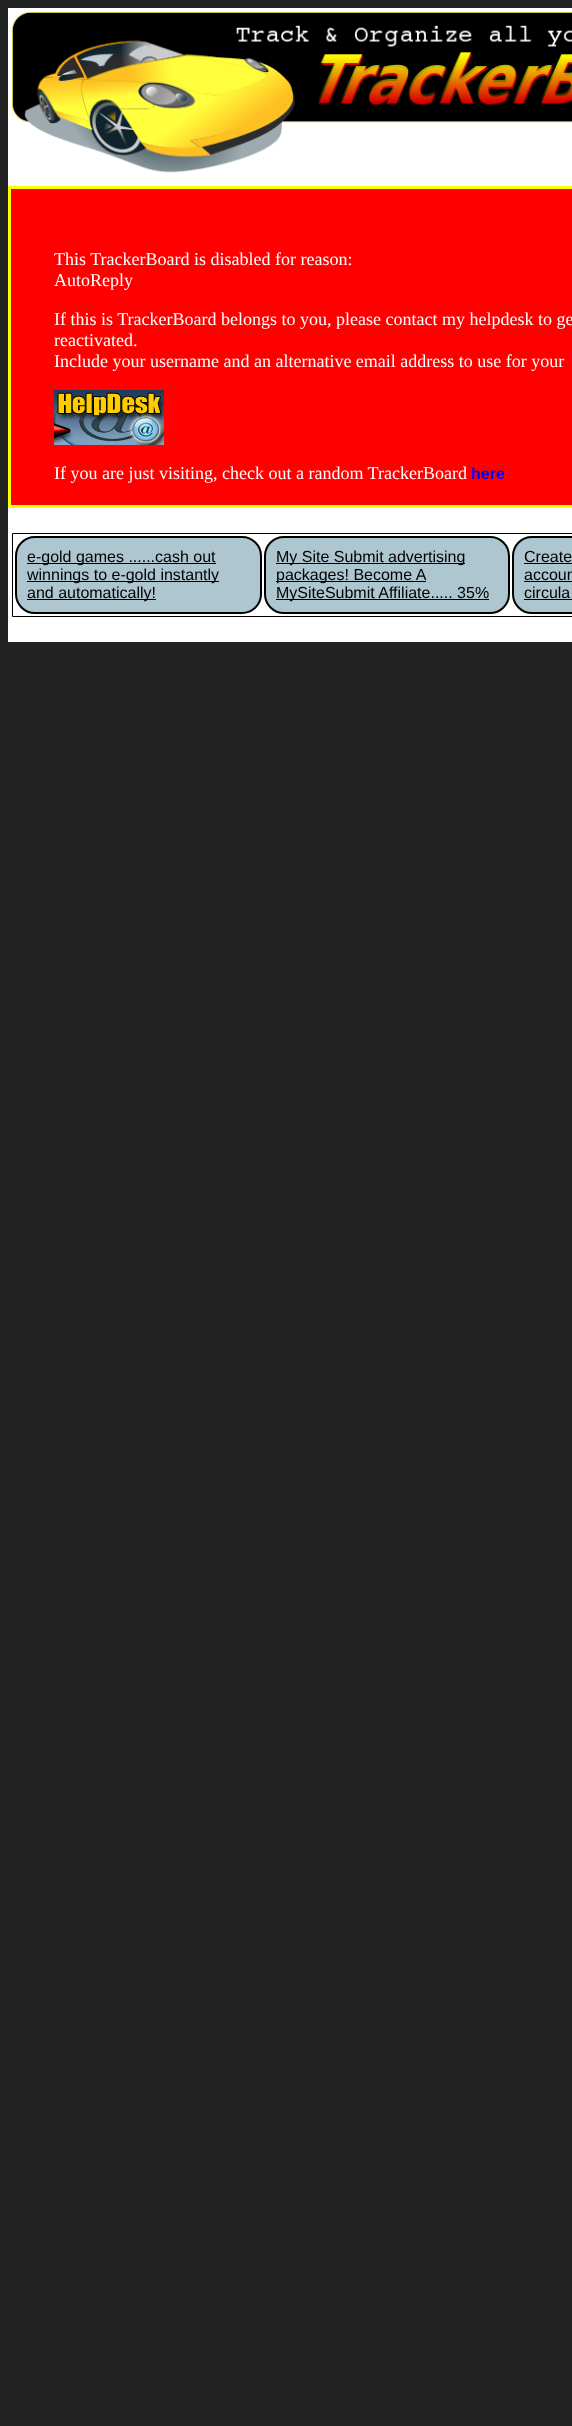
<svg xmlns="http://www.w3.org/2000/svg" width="572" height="2426">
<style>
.a{font:18px Liberation Serif;fill:#fff}
.b{font:bold 16px Liberation Sans;fill:#00f}
.c{font:16px Liberation Sans;fill:#000}
</style>
<rect width="100%" height="100%" fill="#222"/>
<path fill="#fff" d="M9 9h563v177H9z"/>
<path fill="#fff" d="M8 8h564v1H8z"/>
<path fill="#fff" d="M8 8h1v178H8z"/>
<image href="1.png" x="12" y="12" width="560" height="161"/>
<path fill="#f00" stroke="#ff0" stroke-width="3" d="M9.5 187.5h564v319H9.5z"/>
<image href="2.png" x="54" y="390" width="110" height="55"/>
<path fill="#fff" d="M8 508h564v134H8z"/>
<path fill="none" stroke="#000" d="M12.5 533.5h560v83H12.5z"/>
<rect fill="#aec6cf" stroke="#000" stroke-width="2" x="16" y="537" width="245" height="76" rx="19"/>
<path fill="#000" d="M27 563h189v1H27z"/>
<path fill="#000" d="M27 581h192v1H27z"/>
<path fill="#000" d="M27 599h129v1H27z"/>
<rect fill="#aec6cf" stroke="#000" stroke-width="2" x="265" y="537" width="244" height="76" rx="19"/>
<path fill="#000" d="M276 563h189v1H276z"/>
<path fill="#000" d="M276 581h150v1H276z"/>
<path fill="#000" d="M276 599h213v1H276z"/>
<rect fill="#aec6cf" stroke="#000" stroke-width="2" x="513" y="537" width="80" height="76" rx="19"/>
<path fill="#000" d="M524 563h48v1H524z"/>
<path fill="#000" d="M524 581h48v1H524z"/>
<path fill="#000" d="M524 599h48v1H524z"/>
<text class="a" x="54" y="265">This TrackerBoard is disabled for reason:</text>
<text class="a" x="54" y="286">AutoReply</text>
<text class="a" x="54" y="325">If this is TrackerBoard belongs to you, please contact my helpdesk to ge</text>
<text class="a" x="54" y="346">reactivated.</text>
<text class="a" x="54" y="367">Include your username and an alternative email address to use for your</text>
<text class="a" x="54" y="479">If you are just visiting, check out a random TrackerBoard</text>
<text class="b" x="471" y="479">here</text>
<text class="c" x="27" y="562">e-gold games ......cash out</text>
<text class="c" x="27" y="580">winnings to e-gold instantly</text>
<text class="c" x="27" y="598">and automatically!</text>
<text class="c" x="276" y="562">My Site Submit advertising</text>
<text class="c" x="276" y="580">packages! Become A</text>
<text class="c" x="276" y="598">MySiteSubmit Affiliate..... 35%</text>
<text class="c" x="524" y="562">Create</text>
<text class="c" x="524" y="580">accoun</text>
<text class="c" x="524" y="598">circula</text>
</svg>
